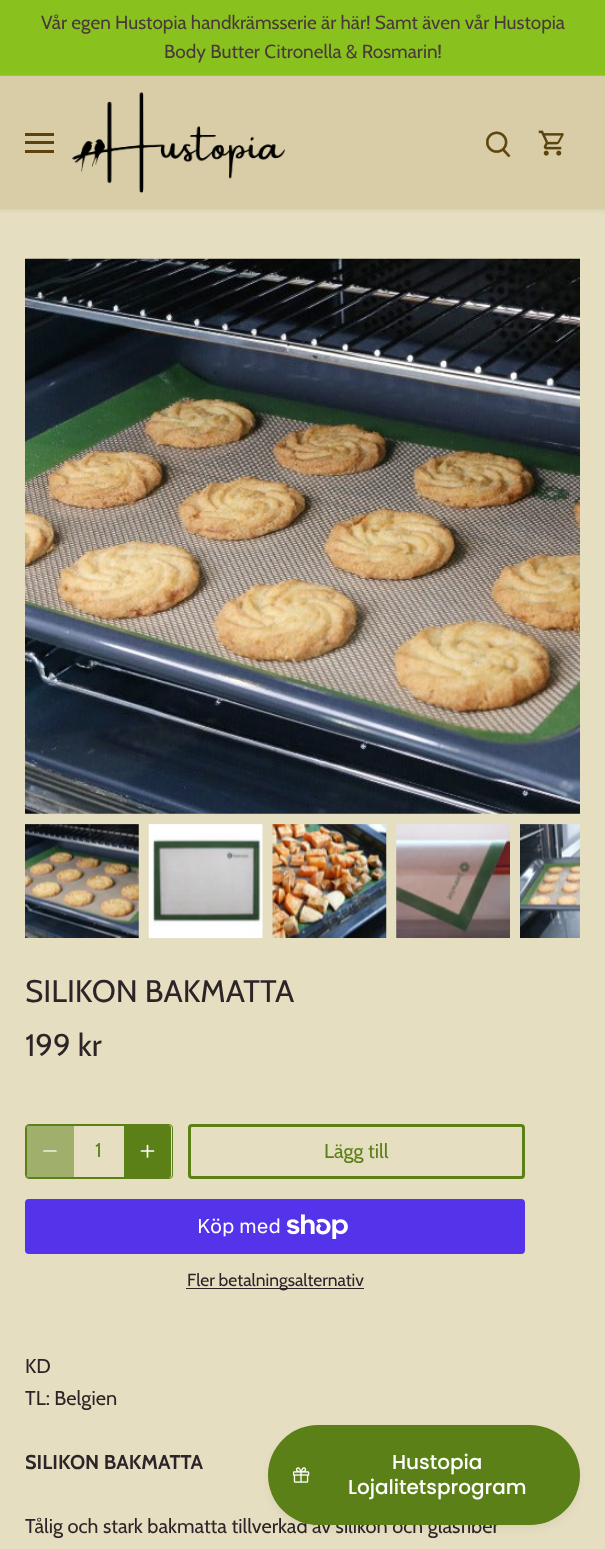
<svg xmlns="http://www.w3.org/2000/svg" width="605" height="1549">
<style>
.a{font:19px Cabin;fill:#4a393a}
.b{font:31.25px Cabin;fill:#2c2528}
.c{font:20px Cabin;fill:#5c8018}
.d{font:20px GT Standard;fill:#fff}
.e{font:17.5px Cabin;fill:#2c2528}
.f{font:20px Cabin;fill:#2c2528}
.g{font:bold 20px Cabin;fill:#2c2528}
.h{font:500 20px Poppins;fill:#fff}
</style>
<rect width="100%" height="100%" fill="#e6dec0"/>
<path fill="#00000014" filter="blur(2px)" d="M-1 75h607v135H-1z"/>
<path fill="#89c21e" d="M0 0h605v75H0z"/>
<path fill="#b9aa80" d="M0 75h605v1H0z"/>
<path fill="#d8cda6" d="M0 76h605v133H0z"/>
<path fill="#5c420d" d="M25 133h29v3H25z"/>
<path fill="#5c420d" d="M25 141h29v3H25z"/>
<path fill="#5c420d" d="M25 150h29v3H25z"/>
<image href="1.png" x="72" y="92" width="213" height="101"/>
<image href="2.png" x="486" y="131" width="25" height="27"/>
<image href="3.png" x="538" y="130" width="26" height="26"/>
<image href="4.png" x="25" y="258" width="555" height="556"/>
<image href="5.png" x="25" y="824" width="114" height="114"/>
<image href="6.png" x="148" y="824" width="115" height="114"/>
<image href="7.png" x="272" y="824" width="115" height="114"/>
<image href="8.png" x="396" y="824" width="114" height="114"/>
<image href="9.png" x="520" y="824" width="60" height="114"/>
<rect fill="none" stroke="#5c8018" x="26.5" y="1125.5" width="144" height="52" rx="2"/>
<rect fill="none" stroke="#5c8018" x="25.5" y="1124.5" width="147" height="54" rx="3.5"/>
<path fill="#5c801880" d="M30 1125h44v53h-44c-2 0-4-2-4-4v-45c0-2 2-4 4-4z"/>
<path fill="none" stroke="#f3efe0" stroke-width="1.7" stroke-linecap="round" stroke-linejoin="round" d="M44 1151h12"/>
<path fill="#5c8018" d="M124 1125h43c2 0 4 2 4 4v45c0 2-2 4-4 4h-43z"/>
<path fill="none" stroke="#fff" stroke-width="1.7" stroke-linecap="round" stroke-linejoin="round" d="M147.5 1145.5v11.5m-6-6h12"/>
<rect fill="none" stroke="#5c8018" stroke-width="3" x="189.5" y="1125.5" width="334" height="52" rx="2.5"/>
<rect fill="#5433eb" x="25" y="1199" width="500" height="55" rx="4"/>
<image href="10.png" x="286" y="1214" width="62" height="25"/>
<path fill="#2c2528" d="M186 1288h178v1H186z"/>
<rect fill="#44444414" filter="blur(5px)" x="270" y="1433" width="308" height="95" rx="47.5"/>
<text class="a" x="41" y="29">Vår egen Hustopia handkrämsserie är här! Samt även vår Hustopia</text>
<text class="a" x="164" y="58">Body Butter Citronella &amp; Rosmarin!</text>
<text class="b" x="25" y="1002">SILIKON BAKMATTA</text>
<text class="b" x="25" y="1056">199 kr</text>
<text class="c" x="95" y="1157">1</text>
<text class="c" x="324" y="1158">Lägg till</text>
<text class="d" x="197" y="1233">Köp med</text>
<text class="e" x="187" y="1286">Fler betalningsalternativ</text>
<text class="f" x="25" y="1373">KD</text>
<text class="f" x="25" y="1405">TL: Belgien</text>
<text class="g" x="25" y="1469">SILIKON BAKMATTA</text>
<text class="f" x="25" y="1533">Tålig och stark bakmatta tillverkad av silikon och glasfiber</text>
<rect fill="#5c8018" x="268" y="1425" width="312" height="100" rx="50"/>
<image href="11.png" x="293" y="1467" width="17" height="16"/>
<text class="h" x="392" y="1469">Hustopia</text>
<text class="h" x="348" y="1494">Lojalitetsprogram</text>
</svg>
